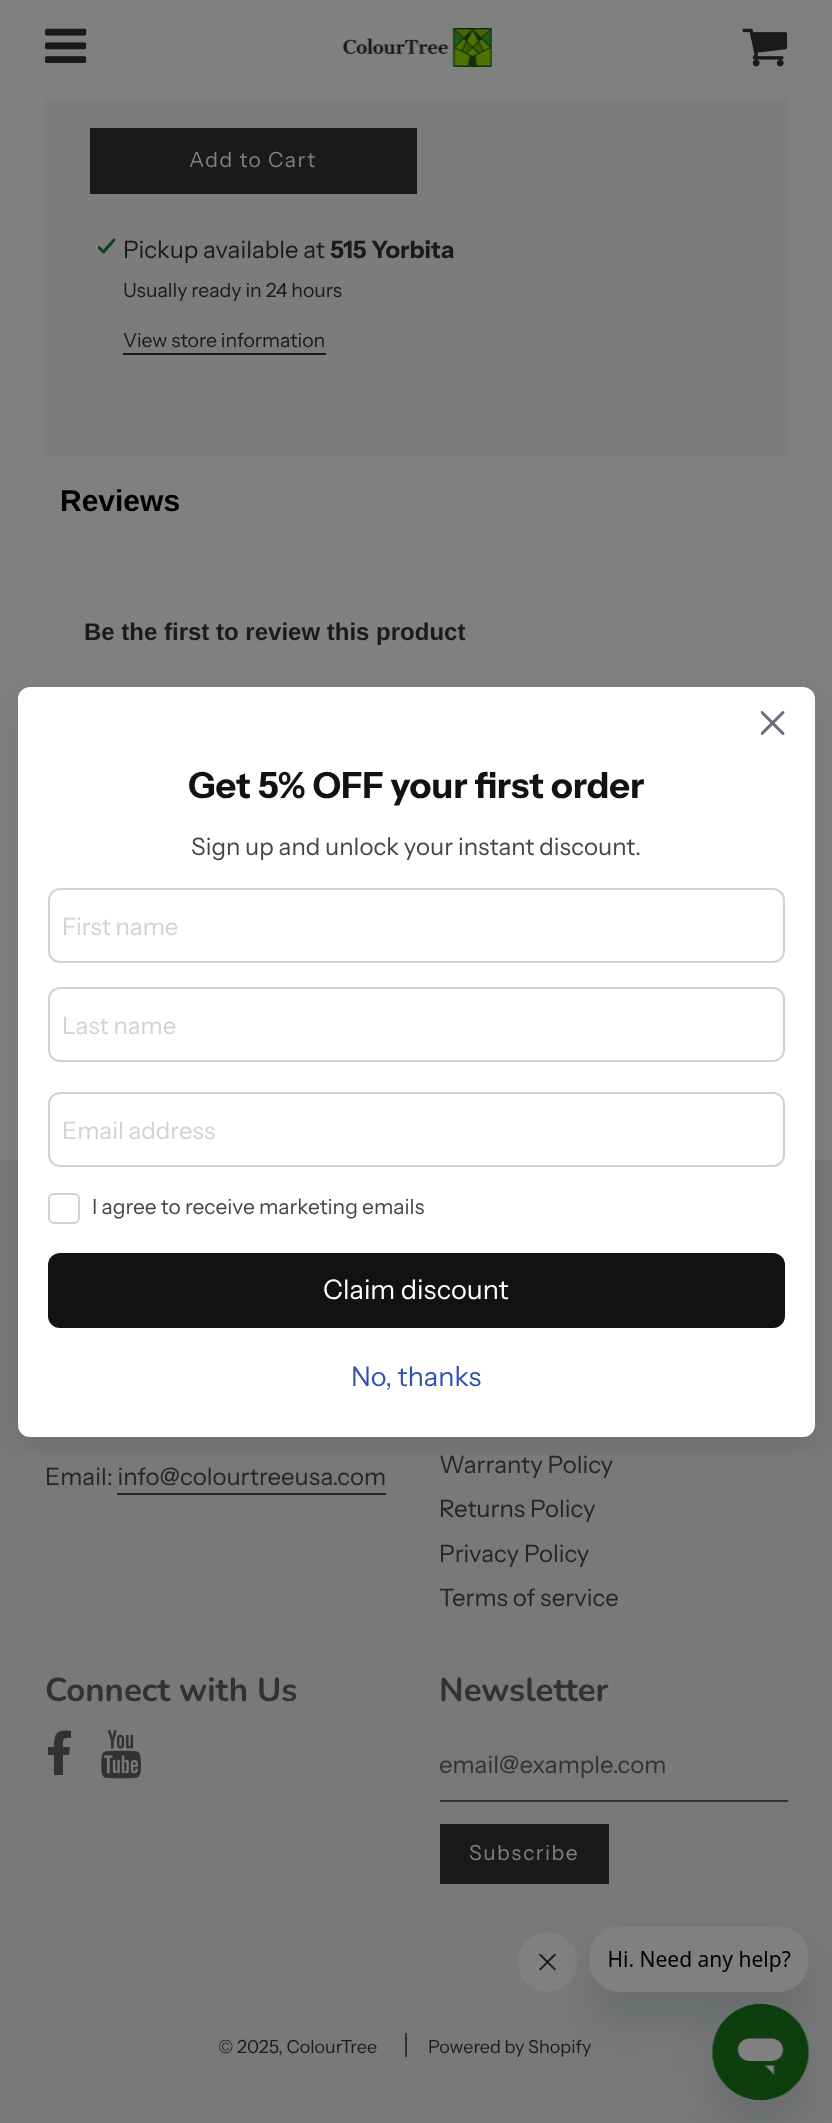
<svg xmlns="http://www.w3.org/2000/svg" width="832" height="2123">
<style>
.a{font:21px Instrument Sans;letter-spacing:1.5px;fill:#808080}
.b{font:24px Instrument Sans;fill:#1a1a1a}
.c{font:bold 24px Instrument Sans;fill:#1a1a1a}
.d{font:19.5px Instrument Sans;fill:#1a1a1a}
.e{font:bold 30px Liberation Sans;fill:#000}
.f{font:bold 24px Liberation Sans;fill:#1a1a1a}
.g{font:24px Instrument Sans;fill:#252525}
.h{font:bold 33px Nunito;fill:#323232}
.i{font:24px Instrument Sans;fill:#323232}
.j{font:18px Instrument Sans;fill:#1a1a1a}
.k{font:bold 36px Instrument Sans;fill:#121212}
.l{font:24px Instrument Sans;fill:#454545}
.m{font:24px Instrument Sans;fill:#d1d1db}
.n{font:21px Instrument Sans;fill:#454545}
.o{font:27px Instrument Sans;fill:#fff}
.p{font:27px Instrument Sans;fill:#334fb4}
</style>
<defs>
<clipPath id="clip1"><path d="M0 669h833v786H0z"/></clipPath>
<clipPath id="clip2"><path d="M440 1749h333v30H440z"/></clipPath>
</defs>
<rect width="100%" height="100%" fill="#808080"/>
<image href="1.png" x="45" y="28" width="42" height="35"/>
<image href="2.png" x="342" y="28" width="150" height="39"/>
<image href="3.png" x="742" y="28" width="46" height="39"/>
<path fill="#7c7c7c" d="M45 98h743v358H45z"/>
<path fill="#1a1a1a" d="M90 128h327v66H90z"/>
<image href="4.png" x="98" y="238" width="18" height="16"/>
<path fill="#1a1a1a" d="M123 353h203v2H123z"/>
<path fill="#797979" d="M0 1160h832v963H0z"/>
<path fill="#252525" d="M117 1493h269v2H117z"/>
<path fill="#323232" d="M71 1731v7c-9 0-8 0-8 9h7l-1 8h-6v20h-9v-20h-6v-8h6c0-13 2-18 17-16z"/>
<image href="5.png" x="101" y="1730" width="40" height="49"/>
<path fill="#323232" d="M440 1800h348v2H440z"/>
<path fill="#1a1a1a" d="M440 1824h169v60H440z"/>
<path fill="#323232" d="M405 2033h2v24H405z"/>
<g clip-path="url(#clip1)">
<rect fill="#1211271a" filter="blur(15px)" x="18" y="699" width="797" height="750" rx="12"/>
</g>
<rect fill="#fff" x="18" y="687" width="797" height="750" rx="12"/>
<image href="6.png" x="761" y="711" width="24" height="24"/>
<rect fill="none" stroke="#d1d1db" stroke-width="2" x="49" y="889" width="735" height="73" rx="11"/>
<rect fill="none" stroke="#d1d1db" stroke-width="2" x="49" y="988" width="735" height="73" rx="11"/>
<rect fill="none" stroke="#d1d1db" stroke-width="2" x="49" y="1093" width="735" height="73" rx="11"/>
<rect fill="none" stroke="#d1d1db" stroke-width="2" x="49" y="1194" width="30" height="29" rx="5"/>
<rect fill="#121212" x="48" y="1253" width="737" height="75" rx="12"/>
<image href="8.png" x="517" y="1932" width="61" height="60"/>
<rect fill="#0c252726" filter="blur(22.5px)" x="590" y="1956" width="219" height="66" rx="30"/>
<image href="7.png" x="590" y="1926" width="218" height="66"/>
<rect fill="#0c252726" filter="blur(22.5px)" x="713" y="2034" width="96" height="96" rx="48"/>
<image href="9.png" x="712" y="2004" width="97" height="96"/>
<text class="a" x="189" y="167">Add to Cart</text>
<text class="b" x="123" y="258">Pickup available at</text>
<text class="c" x="330" y="258">515 Yorbita</text>
<text class="d" x="123" y="297">Usually ready in 24 hours</text>
<text class="d" x="123" y="347">View store information</text>
<text class="e" x="60" y="511">Reviews</text>
<text class="f" x="84" y="640">Be the first to review this product</text>
<text class="g" x="45" y="1485">Email: info@colourtreeusa.com</text>
<text class="g" x="439" y="1473">Warranty Policy</text>
<text class="g" x="439" y="1517">Returns Policy</text>
<text class="g" x="439" y="1562">Privacy Policy</text>
<text class="g" x="439" y="1606">Terms of service</text>
<text class="h" x="45" y="1701">Connect with Us</text>
<text class="h" x="439" y="1701">Newsletter</text>
<g clip-path="url(#clip2)">
<text class="i" x="439" y="1773">email@example.com</text>
</g>
<text class="a" x="469" y="1860">Subscribe</text>
<text class="j" x="218" y="2053">© 2025, ColourTree</text>
<text class="j" x="428" y="2053">Powered by Shopify</text>
<text class="k" x="188" y="798">Get 5% OFF your first order</text>
<text class="l" x="191" y="855">Sign up and unlock your instant discount.</text>
<text class="m" x="62" y="935">First name</text>
<text class="m" x="62" y="1034">Last name</text>
<text class="m" x="62" y="1139">Email address</text>
<text class="n" x="92" y="1214">I agree to receive marketing emails</text>
<text class="o" x="323" y="1299">Claim discount</text>
<text class="p" x="351" y="1386">No, thanks</text>
</svg>
